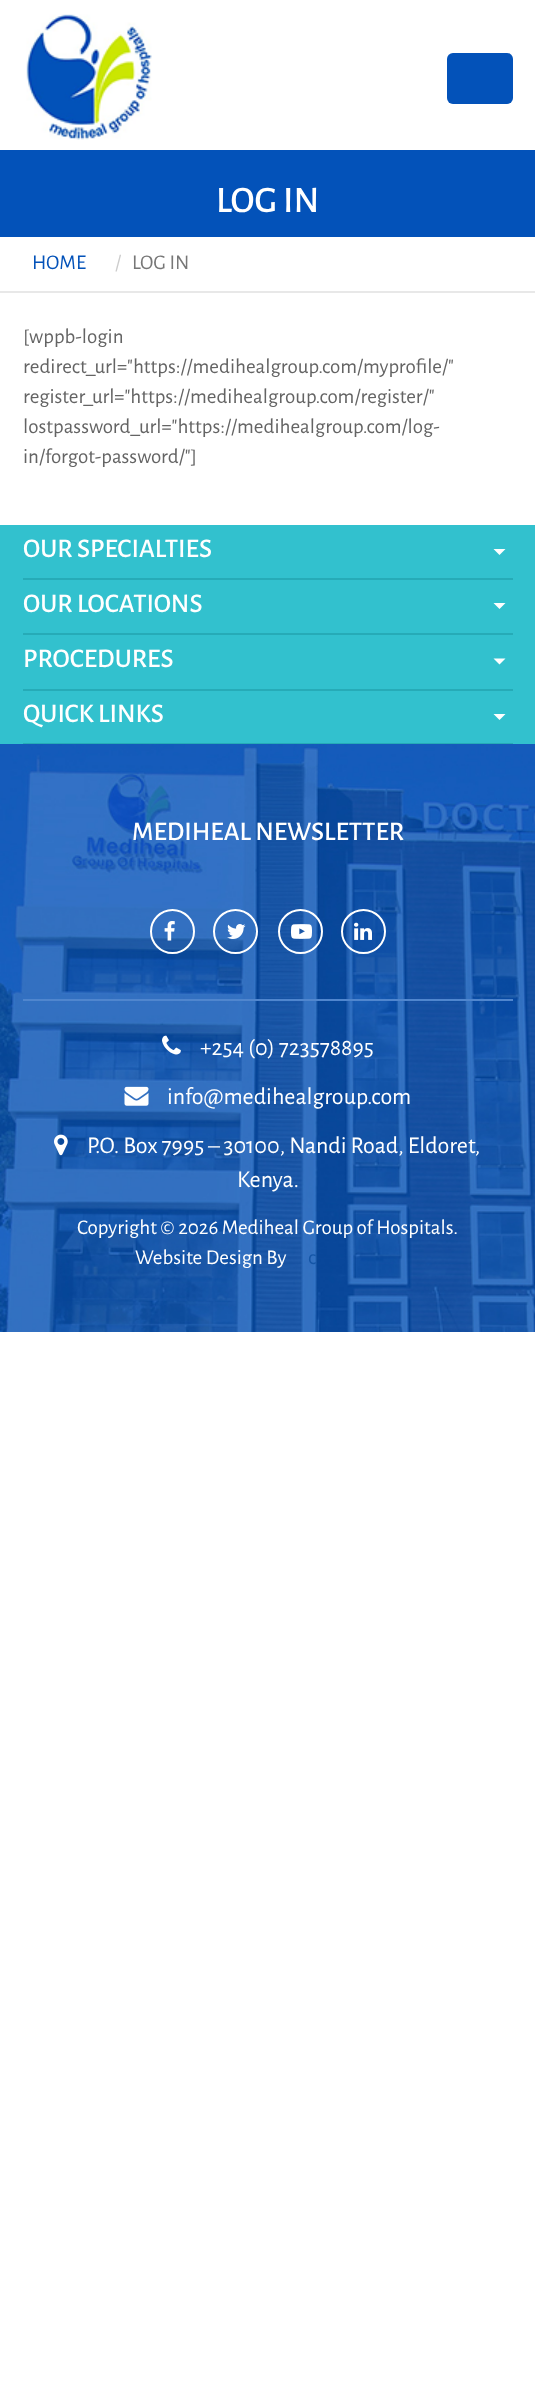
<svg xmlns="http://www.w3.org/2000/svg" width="535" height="2391">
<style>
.a{font:500 37.5px Alegreya Sans;fill:#fff}
.b{font:21px Alegreya Sans;fill:#0352b9}
.c{font:21px Alegreya Sans;fill:#ccc}
.d{font:21px Alegreya Sans;fill:#777}
.e{font:21px Alegreya Sans;fill:#646464}
.f{font:500 27px Alegreya Sans;fill:#fff}
.g{font:24px Alegreya Sans;fill:#fff}
.h{font:21px Alegreya Sans;fill:#fff}
.i{font:21px Alegreya Sans;fill:#1455a6}
</style>
<rect width="100%" height="100%" fill="#fff"/>
<image href="1.png" x="26" y="14" width="126" height="126"/>
<rect fill="#0352b9" x="447" y="53" width="66" height="51" rx="6"/>
<path fill="#0352b9" d="M0 150h535v87H0z"/>
<path fill="#e8e8e8" d="M0 291h535v2H0z"/>
<path fill="#32c1ce" d="M0 525h535v219H0z"/>
<path fill="#26abb7" d="M23 578h490v2H23z"/>
<path fill="#fff" d="M493.5 549h12l-6 6z"/>
<path fill="#26abb7" d="M23 633h490v2H23z"/>
<path fill="#fff" d="M493.5 603h12l-6 6z"/>
<path fill="#26abb7" d="M23 689h490v2H23z"/>
<path fill="#fff" d="M493.5 658.5h12l-6 6z"/>
<path fill="#26abb7" d="M23 743h490v1H23z"/>
<path fill="#fff" d="M493.5 714h12l-6 6z"/>
<image href="2.png" x="0" y="744" width="535" height="588"/>
<circle fill="none" stroke="#fff" stroke-width="2" cx="172.5" cy="931.5" r="21.5"/>
<image href="3.png" x="164" y="921" width="11" height="20"/>
<circle fill="none" stroke="#fff" stroke-width="2" cx="235.5" cy="931.5" r="21.5"/>
<image href="4.png" x="227" y="924" width="19" height="15"/>
<circle fill="none" stroke="#fff" stroke-width="2" cx="300.5" cy="931.5" r="21.5"/>
<image href="5.png" x="291" y="924" width="21" height="15"/>
<circle fill="none" stroke="#fff" stroke-width="2" cx="363.5" cy="931.5" r="21.5"/>
<image href="6.png" x="354" y="922" width="18" height="18"/>
<path fill="#5086ce" d="M23 999h490v2H23z"/>
<image href="7.png" x="162" y="1035" width="19" height="20"/>
<image href="8.png" x="124" y="1086" width="25" height="20"/>
<image href="9.png" x="54" y="1134" width="14" height="22"/>
<text class="a" x="216" y="212">LOG IN</text>
<text class="b" x="32" y="269">HOME</text>
<text class="c" x="115" y="269">/</text>
<text class="d" x="132" y="269">LOG IN</text>
<text class="e" x="23" y="343">[wppb-login</text>
<text class="e" x="23" y="373">redirect_url="https://medihealgroup.com/myprofile/"</text>
<text class="e" x="23" y="403">register_url="https://medihealgroup.com/register/"</text>
<text class="e" x="23" y="433">lostpassword_url="https://medihealgroup.com/log-</text>
<text class="e" x="23" y="463">in/forgot-password/"]</text>
<text class="f" x="23" y="557">OUR SPECIALTIES</text>
<text class="f" x="23" y="612">OUR LOCATIONS</text>
<text class="f" x="23" y="667">PROCEDURES</text>
<text class="f" x="23" y="722">QUICK LINKS</text>
<text class="f" x="132" y="840">MEDIHEAL NEWSLETTER</text>
<text class="g" x="200" y="1055">+254 (0) 723578895</text>
<text class="g" x="167" y="1104">info@medihealgroup.com</text>
<text class="g" x="87" y="1153">P.O. Box 7995 – 30100, Nandi Road, Eldoret,</text>
<text class="g" x="237" y="1187">Kenya.</text>
<text class="h" x="77" y="1234">Copyright © 2026 Mediheal Group of Hospitals.</text>
<text class="h" x="135" y="1264">Website Design By</text>
<text class="i" x="308" y="1264">c</text>
</svg>
